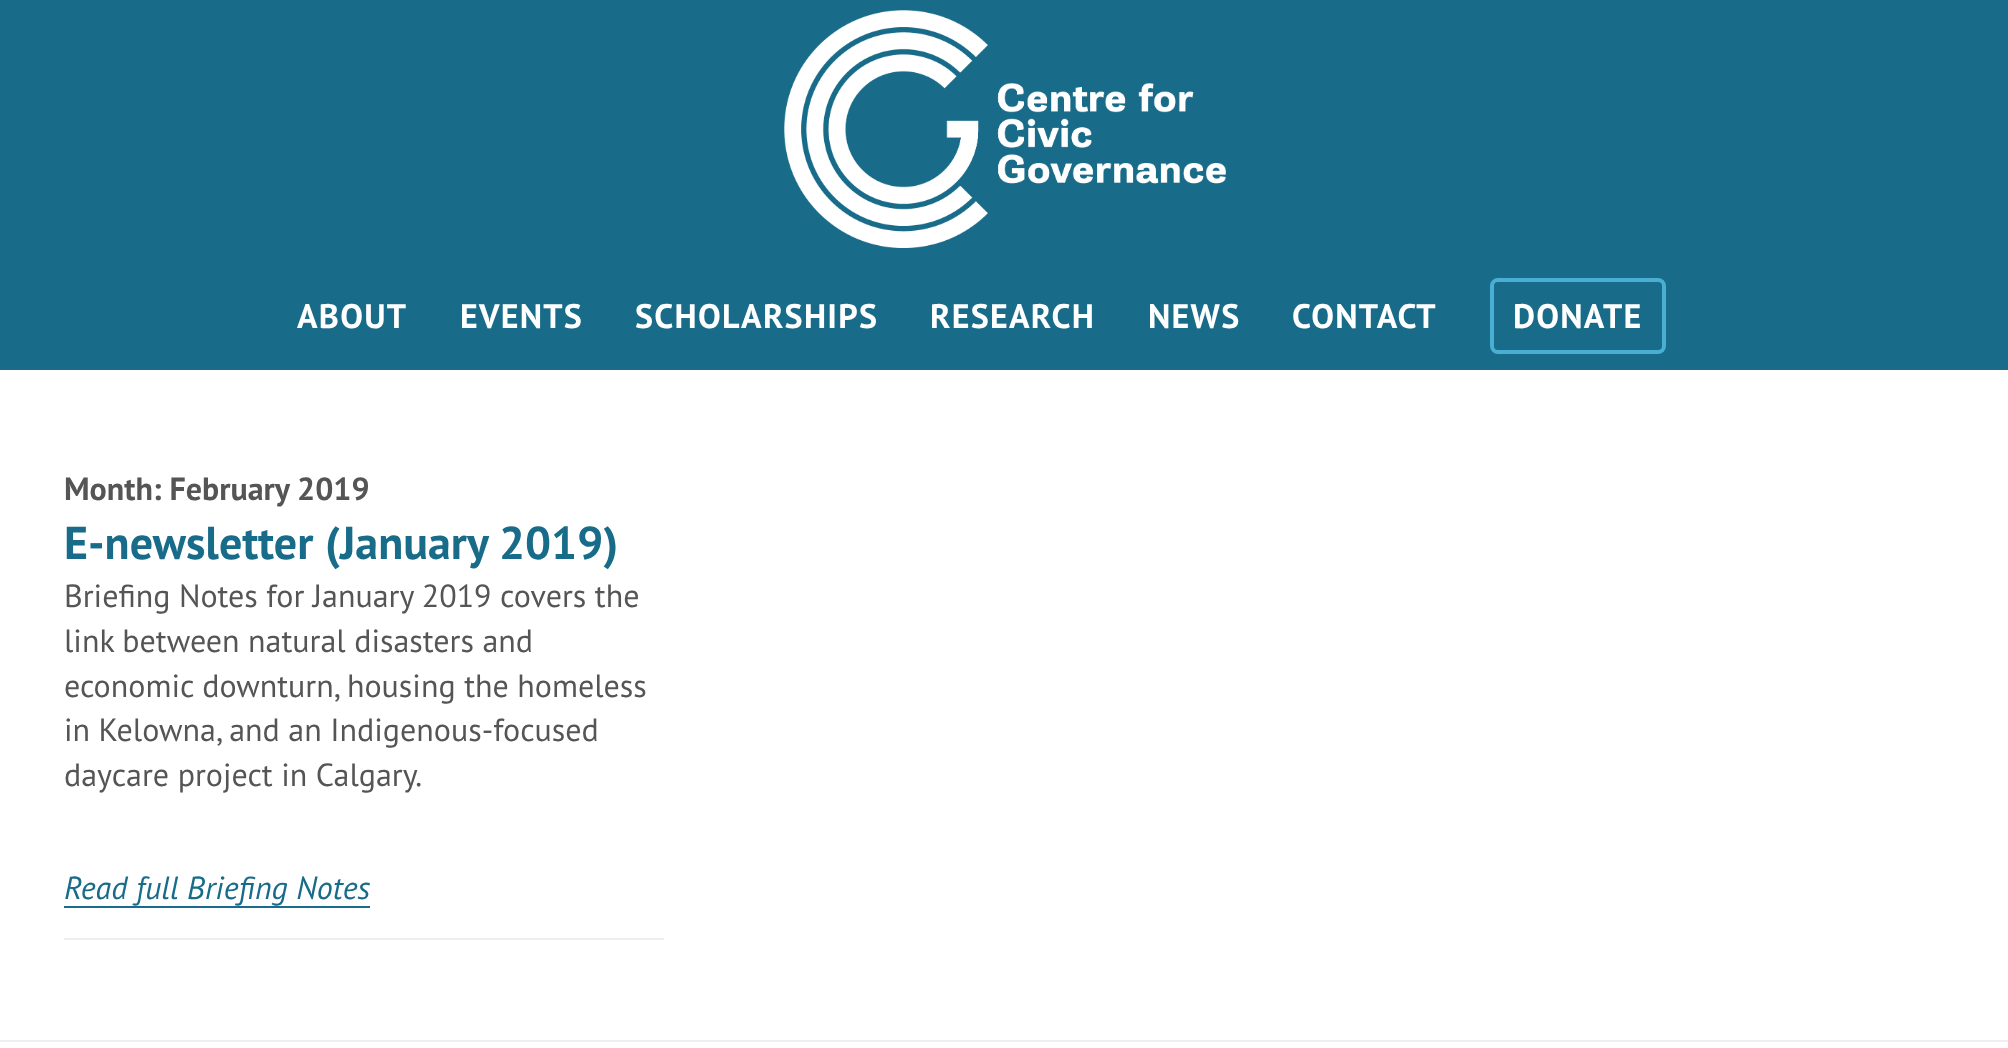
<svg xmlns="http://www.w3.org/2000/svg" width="2008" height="1048">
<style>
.a{font:bold 34px PT Sans;letter-spacing:1.25px;fill:#fff}
.b{font:bold 32px PT Sans;fill:#555}
.c{font:bold 46px PT Sans;fill:#186c89}
.d{font:32px PT Sans;fill:#555}
.e{font:italic 32px PT Sans;fill:#186c89}
</style>
<rect width="100%" height="100%" fill="#fff"/>
<path fill="#186c89" d="M0 0h2008v370H0z"/>
<image href="1.png" x="784" y="10" width="442" height="238"/>
<rect fill="none" stroke="#4aafd2" stroke-width="4" x="1492" y="280" width="172" height="72" rx="6"/>
<path fill="#186c89" d="M64 906h306v2H64z"/>
<path fill="#eee" d="M64 938h600v2H64z"/>
<path fill="#eee" d="M0 1040h2008v2H0z"/>
<text class="a" x="297" y="328">ABOUT</text>
<text class="a" x="460" y="328">EVENTS</text>
<text class="a" x="635" y="328">SCHOLARSHIPS</text>
<text class="a" x="930" y="328">RESEARCH</text>
<text class="a" x="1148" y="328">NEWS</text>
<text class="a" x="1292" y="328">CONTACT</text>
<text class="a" x="1513" y="328">DONATE</text>
<text class="b" x="64" y="500">Month: February 2019</text>
<text class="c" x="64" y="559">E-newsletter (January 2019)</text>
<text class="d" x="64" y="607">Briefing Notes for January 2019 covers the</text>
<text class="d" x="64" y="652">link between natural disasters and</text>
<text class="d" x="64" y="697">economic downturn, housing the homeless</text>
<text class="d" x="64" y="741">in Kelowna, and an Indigenous-focused</text>
<text class="d" x="64" y="786">daycare project in Calgary.</text>
<text class="e" x="64" y="899">Read full Briefing Notes</text>
</svg>
